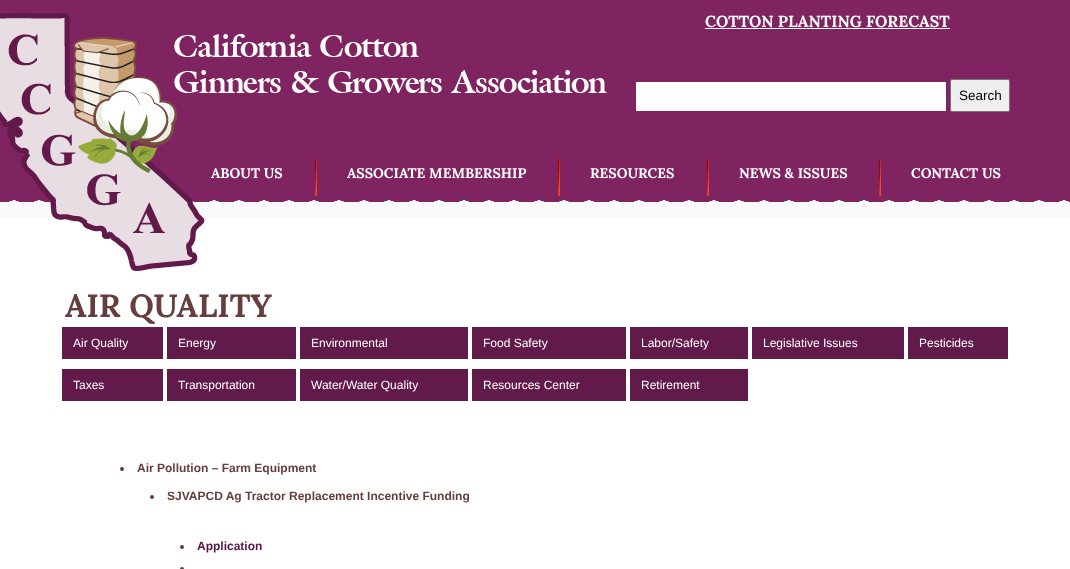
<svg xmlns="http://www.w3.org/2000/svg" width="1070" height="569">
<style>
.a{font:bold 16px Lora;fill:#fff}
.b{font:13.5px Liberation Sans;fill:#000}
.c{font:bold 14px Lora;fill:#fff}
.d{font:bold 32px Lora;fill:#663e3e}
.e{font:12px Liberation Sans;fill:#fff}
.f{font:bold 12px Liberation Sans;fill:#663e3e}
.g{font:bold 12px Liberation Sans;fill:#581744}
</style>
<rect width="100%" height="100%" fill="#fff"/>
<path fill="#7f2361" d="M0 0h1070v146H0z"/>
<image href="4.png" x="0" y="200" width="1070" height="18"/>
<image href="2.png" x="0" y="146" width="1070" height="56"/>
<image href="1.png" x="0" y="13" width="607" height="258"/>
<path fill="#fff" d="M705 28h245v1H705z"/>
<path fill="#fff" d="M636 82h310v29H636z"/>
<rect fill="#efefef" stroke="#767676" x="950.5" y="79.5" width="59" height="32" rx="1.5"/>
<image href="3.png" x="315" y="159" width="2" height="37"/>
<image href="3.png" x="558" y="159" width="2" height="37"/>
<image href="3.png" x="707" y="159" width="2" height="37"/>
<image href="3.png" x="879" y="159" width="2" height="37"/>
<path fill="#621a4b" d="M62 327h101v32H62z"/>
<path fill="#621a4b" d="M167 327h129v32H167z"/>
<path fill="#621a4b" d="M300 327h168v32H300z"/>
<path fill="#621a4b" d="M472 327h154v32H472z"/>
<path fill="#621a4b" d="M630 327h118v32H630z"/>
<path fill="#621a4b" d="M752 327h152v32H752z"/>
<path fill="#621a4b" d="M908 327h100v32H908z"/>
<path fill="#621a4b" d="M62 369h101v32H62z"/>
<path fill="#621a4b" d="M167 369h129v32H167z"/>
<path fill="#621a4b" d="M300 369h168v32H300z"/>
<path fill="#621a4b" d="M472 369h154v32H472z"/>
<path fill="#621a4b" d="M630 369h118v32H630z"/>
<circle fill="#663e3e" cx="122" cy="469" r="2"/>
<circle fill="#663e3e" cx="152" cy="497" r="2"/>
<circle fill="#663e3e" cx="182" cy="547" r="2"/>
<circle fill="#663e3e" cx="182" cy="569" r="2"/>
<text class="a" x="705" y="27">COTTON PLANTING FORECAST</text>
<text class="b" x="959" y="100">Search</text>
<text class="c" x="211" y="178">ABOUT US</text>
<text class="c" x="347" y="178">ASSOCIATE MEMBERSHIP</text>
<text class="c" x="590" y="178">RESOURCES</text>
<text class="c" x="739" y="178">NEWS &amp; ISSUES</text>
<text class="c" x="911" y="178">CONTACT US</text>
<text class="d" x="65" y="317">AIR QUALITY</text>
<text class="e" x="73" y="347">Air Quality</text>
<text class="e" x="178" y="347">Energy</text>
<text class="e" x="311" y="347">Environmental</text>
<text class="e" x="483" y="347">Food Safety</text>
<text class="e" x="641" y="347">Labor/Safety</text>
<text class="e" x="763" y="347">Legislative Issues</text>
<text class="e" x="919" y="347">Pesticides</text>
<text class="e" x="73" y="389">Taxes</text>
<text class="e" x="178" y="389">Transportation</text>
<text class="e" x="311" y="389">Water/Water Quality</text>
<text class="e" x="483" y="389">Resources Center</text>
<text class="e" x="641" y="389">Retirement</text>
<text class="f" x="137" y="472">Air Pollution – Farm Equipment</text>
<text class="f" x="167" y="500">SJVAPCD Ag Tractor Replacement Incentive Funding</text>
<text class="g" x="197" y="550">Application</text>
</svg>
